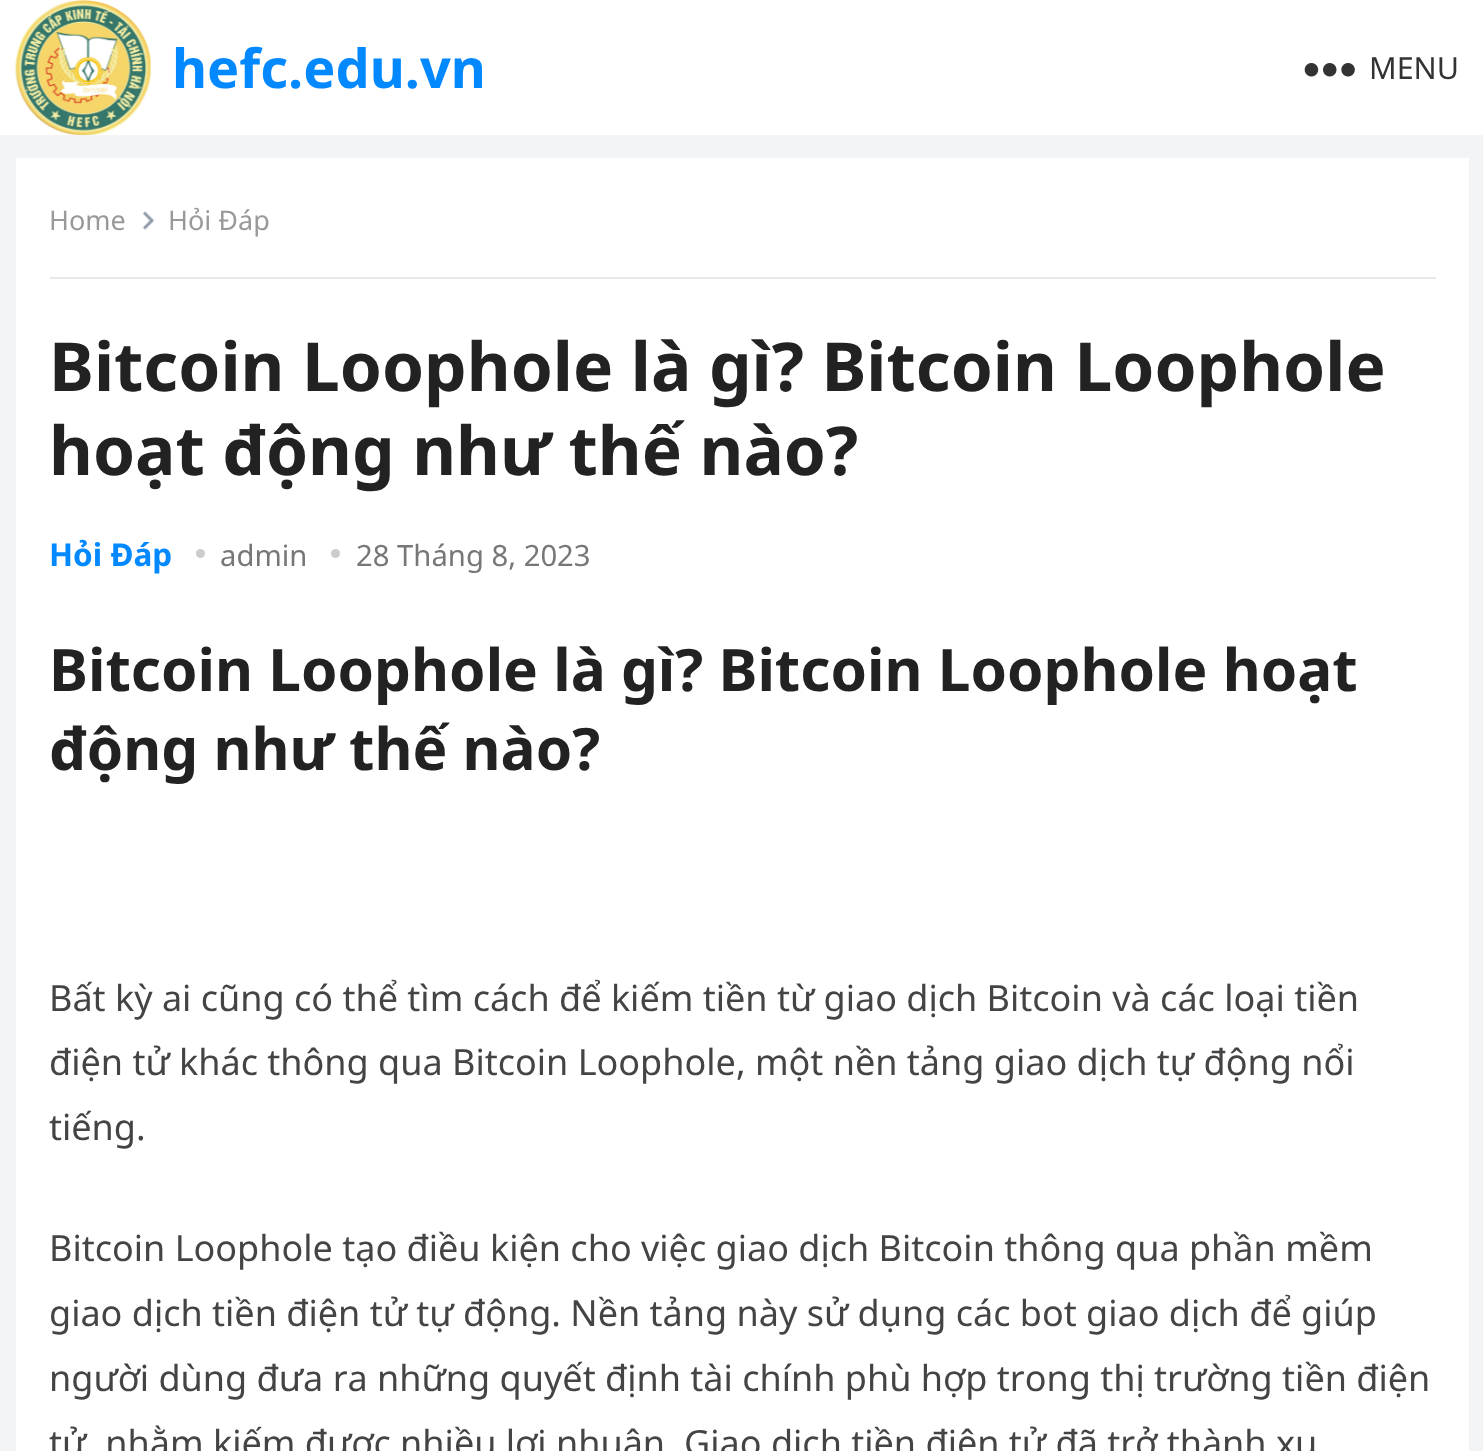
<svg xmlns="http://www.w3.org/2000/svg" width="1483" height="1451">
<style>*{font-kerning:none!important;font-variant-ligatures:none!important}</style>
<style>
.a{font:bold 54px Noto Sans;fill:#0389ff}
.b{font:30.5px Noto Sans;fill:#333}
.c{font:27px Noto Sans;fill:#999}
.d{font:bold 67.5px Noto Sans;fill:#222}
.e{font:bold 31.5px Noto Sans;fill:#0389ff}
.f{font:29.25px Noto Sans;fill:#777}
.g{font:bold 58.5px Noto Sans;fill:#222}
.h{font:36px Noto Sans;fill:#444}
</style>
<rect width="100%" height="100%" fill="#f3f4f5"/>
<path fill="#fff" d="M0 0h1483v135H0z"/>
<image href="1.png" x="15" y="0" width="136" height="135"/>
<image href="2.png" x="1304" y="63" width="51" height="14"/>
<path fill="#fff" d="M16 158h1453v1293H16z"/>
<path fill="#e9e9e9" d="M50 277h1386v2H50z"/>
<image href="3.png" x="142" y="211" width="13" height="19"/>
<circle fill="#ccc" cx="200.5" cy="553.5" r="4.5"/>
<circle fill="#ccc" cx="335.5" cy="553.5" r="4.5"/>
<text class="a" x="172" y="88">hefc.edu.vn</text>
<text class="b" x="1369" y="79">MENU</text>
<text class="c" x="49" y="230">Home</text>
<text class="c" x="168" y="230">Hỏi Đáp</text>
<text class="d" x="49" y="391">Bitcoin Loophole là gì? Bitcoin Loophole</text>
<text class="d" x="49" y="475">hoạt động như thế nào?</text>
<text class="e" x="49" y="566">Hỏi Đáp</text>
<text class="f" x="220" y="566">admin</text>
<text class="f" x="356" y="566">28 Tháng 8, 2023</text>
<text class="g" x="49" y="691">Bitcoin Loophole là gì? Bitcoin Loophole hoạt</text>
<text class="g" x="49" y="770">động như thế nào?</text>
<text class="h" x="49" y="1011">Bất kỳ ai cũng có thể tìm cách để kiếm tiền từ giao dịch Bitcoin và các loại tiền</text>
<text class="h" x="49" y="1075">điện tử khác thông qua Bitcoin Loophole, một nền tảng giao dịch tự động nổi</text>
<text class="h" x="49" y="1140">tiếng.</text>
<text class="h" x="49" y="1261">Bitcoin Loophole tạo điều kiện cho việc giao dịch Bitcoin thông qua phần mềm</text>
<text class="h" x="49" y="1326">giao dịch tiền điện tử tự động. Nền tảng này sử dụng các bot giao dịch để giúp</text>
<text class="h" x="49" y="1391">người dùng đưa ra những quyết định tài chính phù hợp trong thị trường tiền điện</text>
<text class="h" x="49" y="1456">tử, nhằm kiếm được nhiều lợi nhuận. Giao dịch tiền điện tử đã trở thành xu</text>
</svg>
